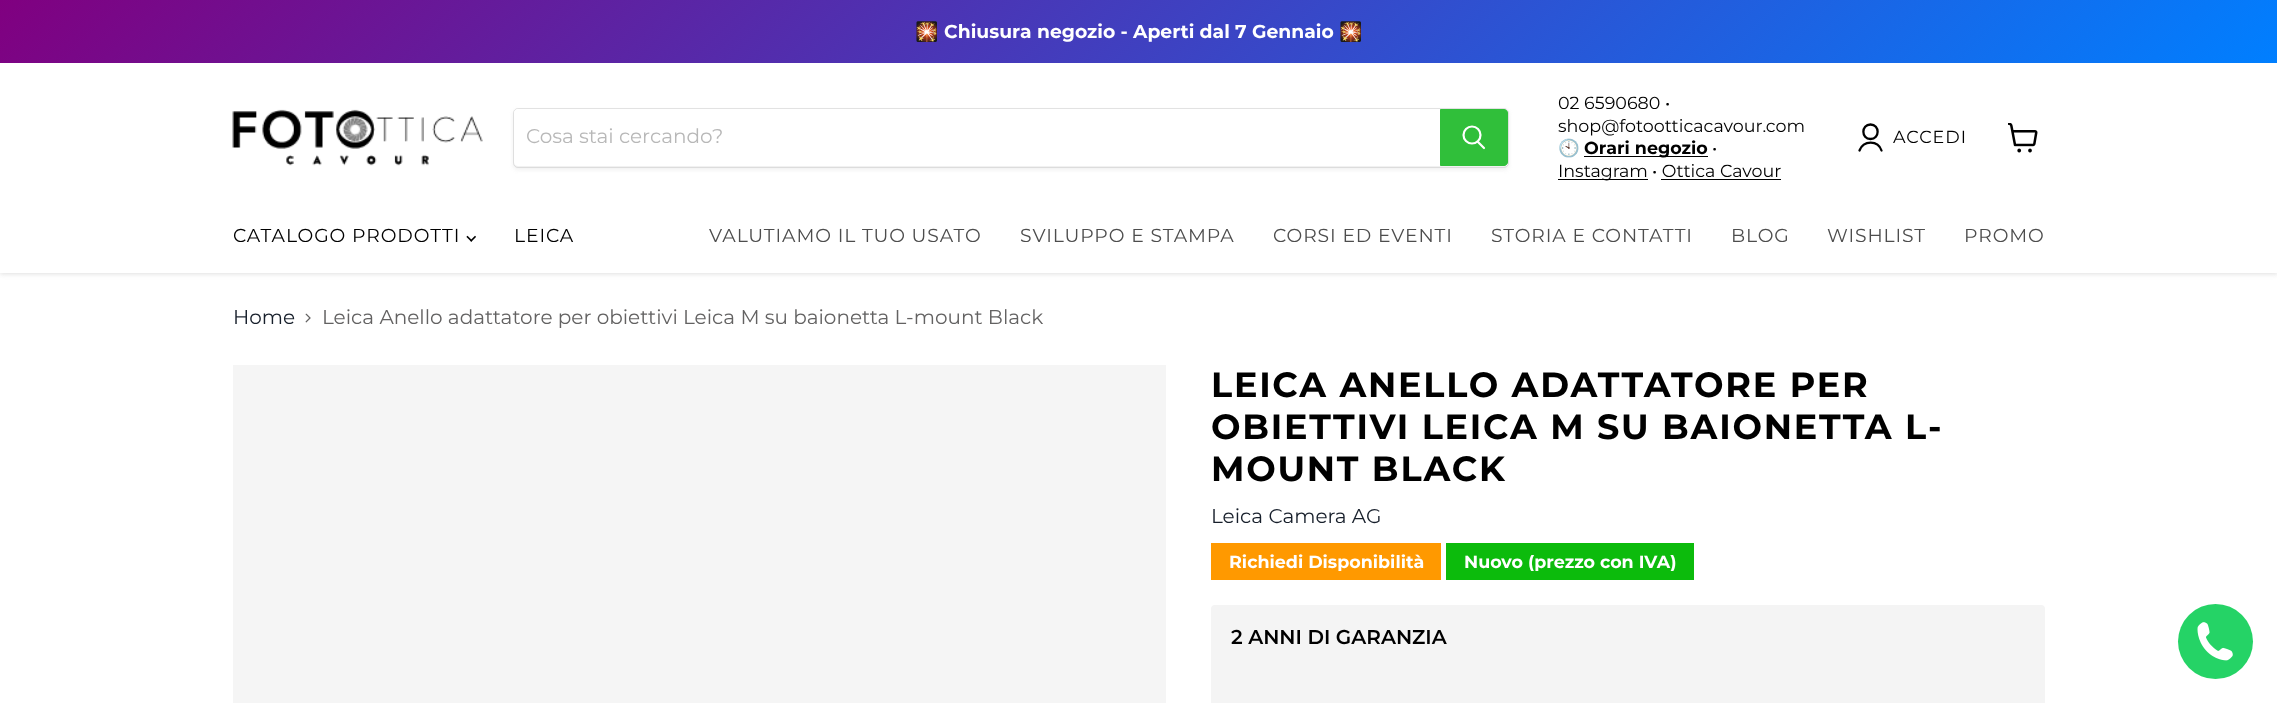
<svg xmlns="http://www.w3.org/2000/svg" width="2277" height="703">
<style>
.a{font:bold 18.75px Noto Color Emoji;fill:#fff}
.b{font:bold 18.75px Montserrat;fill:#fff}
.c{font:100 20px Montserrat;fill:#b8b8b8}
.d{font:100 17.5px Montserrat;fill:#000}
.e{font:17.5px Noto Color Emoji;fill:#000}
.f{font:bold 17.5px Montserrat;fill:#000}
.g{font:100 17.5px Montserrat;letter-spacing:1px;fill:#000}
.h{font:100 18.75px Montserrat;letter-spacing:0.9px;fill:#000}
.i{font:100 18.75px Montserrat;letter-spacing:0.9px;fill:#4d4d4d}
.j{font:100 20px Montserrat;fill:#171f2b}
.k{font:100 20px Montserrat;fill:#636262}
.l{font:bold 35px Montserrat;letter-spacing:1.75px;fill:#000}
.m{font:bold 17.5px Montserrat;fill:#fff}
.n{font:600 20px Montserrat;fill:#000}
</style>
<defs>
<linearGradient id="g1" gradientUnits="userSpaceOnUse" x1="554" y1="-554" x2="1724" y2="616"><stop offset="0" stop-color="#800080"/><stop offset="1" stop-color="#007fff"/></linearGradient>
<clipPath id="clip1"><path d="M1229 551h195v20H1229z"/></clipPath>
<clipPath id="clip2"><path d="M1464 551h212v20H1464z"/></clipPath>
</defs>
<rect width="100%" height="100%" fill="#fff"/>
<path fill="#80808040" filter="blur(2.5px)" d="M0 64h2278v210H0z"/>
<path fill="url(#g1)" d="M0 0h2277v63H0z"/>
<path fill="#fff" d="M0 63h2277v210H0z"/>
<image href="1.png" x="232" y="109" width="251" height="57"/>
<rect fill="#8080801c" filter="blur(2px)" x="513" y="110" width="996" height="60" rx="5"/>
<rect fill="none" stroke="#80808033" x="513.5" y="108.5" width="995" height="59" rx="4.5"/>
<path fill="#fff" d="M518 109h922v57h-922c-2 0-4-2-4-4v-49c0-2 2-4 4-4z"/>
<path fill="#30bf3a" stroke="#30bf3a" d="M1440.5 109.5h63.5c2 0 3.5 1.5 3.5 3.5v49c0 2-1.5 3.5-3.5 3.5h-63.5z"/>
<path fill="none" stroke="#fff" stroke-width="2.2" stroke-linecap="round" d="M1484 148l-6-6"/>
<circle fill="none" stroke="#fff" stroke-width="2.2" cx="1472" cy="135" r="8.5"/>
<path fill="#000" d="M1584 156h124v1H1584z"/>
<path fill="#000" d="M1558 179h90v1H1558z"/>
<path fill="#000" d="M1661 179h120v1H1661z"/>
<path fill="none" stroke="#000" stroke-width="2.3" stroke-linecap="round" stroke-linejoin="round" d="M1870.5 139c9.5 0 9.5-14.5 0-14.5c-9.5 0-9.5 14.5 0 14.5zm11 11.5c-3.5-10.5-18-10.5-22 0"/>
<image href="2.png" x="2008" y="123" width="30" height="30"/>
<image href="3.png" x="466" y="235" width="10" height="7"/>
<image href="4.png" x="305" y="313" width="6" height="10"/>
<path fill="#f5f5f5" d="M233 365h933v338H233z"/>
<path fill="#f90" d="M1211 543h230v37H1211z"/>
<path fill="#0cbb0c" d="M1446 543h248v37H1446z"/>
<rect fill="#f4f4f4" x="1211" y="605" width="834" height="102" rx="4"/>
<circle fill="#25d366" cx="2215.5" cy="641.5" r="37.5"/>
<image href="5.png" x="2197" y="622" width="36" height="39"/>
<text class="a" x="915" y="38">🎇</text>
<text class="b" x="944" y="38">Chiusura negozio - Aperti dal 7 Gennaio</text>
<text class="a" x="1339" y="38">🎇</text>
<text class="c" x="526" y="143">Cosa stai cercando?</text>
<text class="d" x="1558" y="109">02 6590680 •</text>
<text class="d" x="1558" y="132">shop@fotootticacavour.com</text>
<text class="e" x="1558" y="154">🕙</text>
<text class="f" x="1584" y="154">Orari negozio</text>
<text class="d" x="1712" y="154">•</text>
<text class="d" x="1558" y="177">Instagram</text>
<text class="d" x="1652" y="177">• Ottica Cavour</text>
<text class="g" x="1893" y="143">ACCEDI</text>
<text class="h" x="233" y="242">CATALOGO PRODOTTI</text>
<text class="h" x="514" y="242">LEICA</text>
<text class="i" x="709" y="242">VALUTIAMO IL TUO USATO</text>
<text class="i" x="1020" y="242">SVILUPPO E STAMPA</text>
<text class="i" x="1273" y="242">CORSI ED EVENTI</text>
<text class="i" x="1491" y="242">STORIA E CONTATTI</text>
<text class="i" x="1731" y="242">BLOG</text>
<text class="i" x="1827" y="242">WISHLIST</text>
<text class="i" x="1964" y="242">PROMO</text>
<text class="j" x="233" y="324">Home</text>
<text class="k" x="322" y="324">Leica Anello adattatore per obiettivi Leica M su baionetta L-mount Black</text>
<text class="l" x="1211" y="397">LEICA ANELLO ADATTATORE PER</text>
<text class="l" x="1211" y="439">OBIETTIVI LEICA M SU BAIONETTA L-</text>
<text class="l" x="1211" y="481">MOUNT BLACK</text>
<text class="j" x="1211" y="523">Leica Camera AG</text>
<g clip-path="url(#clip1)">
<text class="m" x="1229" y="568">Richiedi Disponibilità</text>
</g>
<g clip-path="url(#clip2)">
<text class="m" x="1464" y="568">Nuovo (prezzo con IVA)</text>
</g>
<text class="n" x="1231" y="644">2 ANNI DI GARANZIA</text>
</svg>
